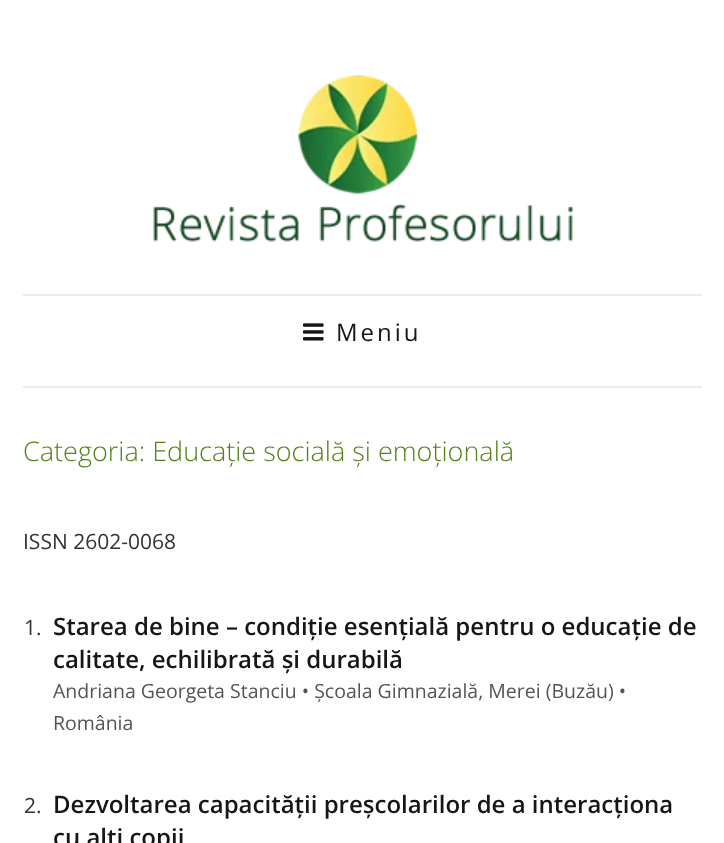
<svg xmlns="http://www.w3.org/2000/svg" width="724" height="843">
<style>
.a{font:24px Open Sans;letter-spacing:3px;fill:#161616}
.b{font:300 27px Open Sans;fill:#558219}
.c{font:21px Open Sans;fill:#333}
.d{font:600 24px Open Sans;fill:#161616}
.e{font:19.5px Open Sans;fill:#545454}
</style>
<rect width="100%" height="100%" fill="#fff"/>
<image href="1.png" x="153" y="75" width="420" height="167"/>
<path fill="#ebebeb" d="M23 294h679v2H23z"/>
<path fill="#ebebeb" d="M23 386h679v2H23z"/>
<image href="2.png" x="303" y="323" width="21" height="18"/>
<text class="a" x="336" y="341">Meniu</text>
<text class="b" x="23" y="461">Categoria: Educație socială și emoțională</text>
<text class="c" x="23" y="549">ISSN 2602-0068</text>
<text class="c" x="24" y="635">1.</text>
<text class="d" x="53" y="635">Starea de bine – condiție esențială pentru o educație de</text>
<text class="d" x="53" y="668">calitate, echilibrată și durabilă</text>
<text class="e" x="53" y="698">Andriana Georgeta Stanciu • Școala Gimnazială, Merei (Buzău) •</text>
<text class="e" x="53" y="730">România</text>
<text class="c" x="24" y="813">2.</text>
<text class="d" x="53" y="813">Dezvoltarea capacității preșcolarilor de a interacționa</text>
<text class="d" x="53" y="846">cu alți copii</text>
</svg>
